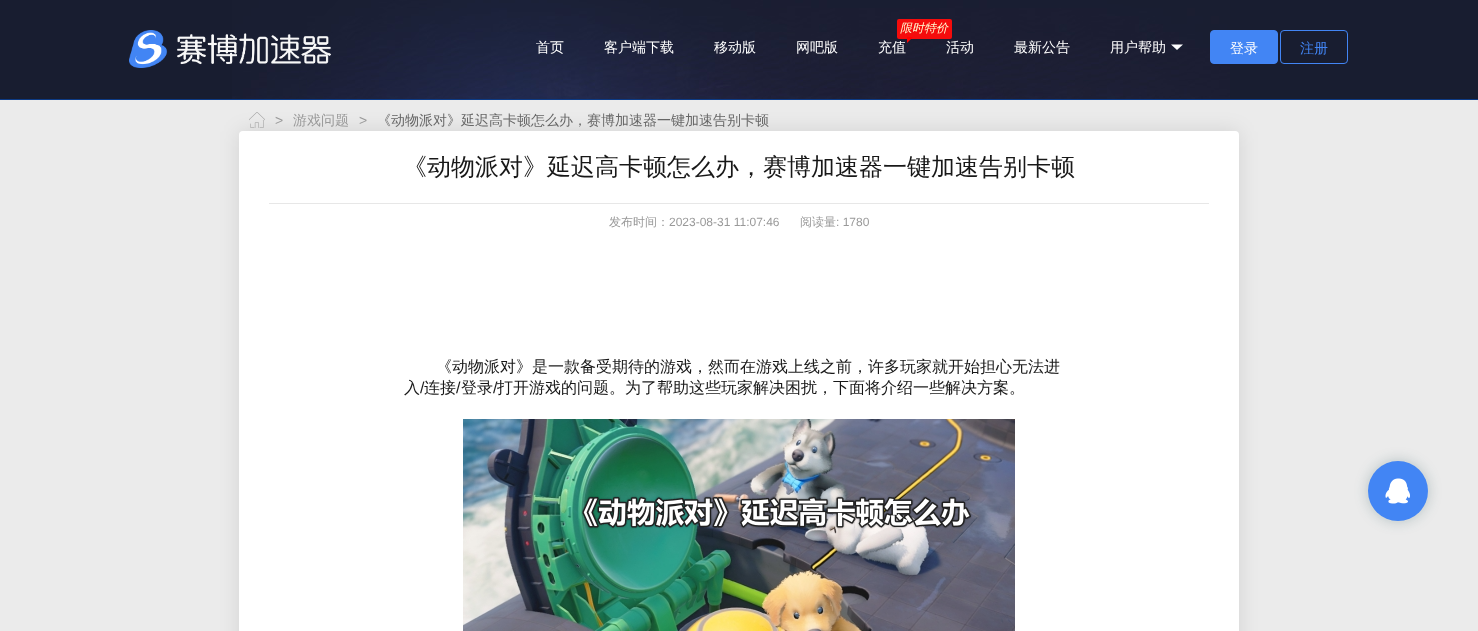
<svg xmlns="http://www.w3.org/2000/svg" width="1478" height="631">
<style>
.a{font:500 14px WenQuanYi Zen Hei;fill:#fff}
.b{font:italic 500 12px WenQuanYi Zen Hei;fill:#fffdd3}
.c{font:500 14px WenQuanYi Zen Hei;fill:#4285f4}
.d{font:14px Liberation Sans;fill:#999}
.e{font:500 14px WenQuanYi Zen Hei;fill:#999}
.f{font:500 14px WenQuanYi Zen Hei;fill:#666}
.g{font:500 24px WenQuanYi Zen Hei;fill:#181818}
.h{font:500 12px WenQuanYi Zen Hei;fill:#999}
.i{font:12px Liberation Sans;fill:#999}
.j{font:500 16px WenQuanYi Zen Hei;fill:#181818}
.k{font:16px Liberation Sans;fill:#181818}
</style>
<rect width="100%" height="100%" fill="#ebebeb"/>
<path fill="#181d30" d="M0 0h1478v99H0z"/>
<image href="1.png" x="232" y="0" width="998" height="99"/>
<image href="2.png" x="129" y="30" width="202" height="38"/>
<rect fill="#f50c0c" x="897" y="19" width="55" height="20" rx="2"/>
<path fill="#f00" d="M907 37h6l-6 6z"/>
<path fill="#fff" d="M1171 44.5l6 5.5l6-5.5z"/>
<rect fill="#4285f4" stroke="#4285f4" x="1210.5" y="30.5" width="67" height="33" rx="3.5"/>
<rect fill="none" stroke="#4285f4" x="1280.5" y="30.5" width="67" height="33" rx="3.5"/>
<path fill="#0c3a84" d="M0 99h1478v1H0z"/>
<rect fill="#0000001a" filter="blur(10px)" x="239" y="131" width="1000" height="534" rx="4"/>
<image href="3.png" x="249" y="112" width="16" height="16"/>
<rect fill="#fff" x="239" y="131" width="1000" height="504" rx="4"/>
<path fill="#e7e7e7" d="M269 203h940v1H269z"/>
<image href="4.png" x="463" y="419" width="552" height="212"/>
<rect fill="#0f424c40" filter="blur(7px)" x="1368" y="461" width="60" height="60" rx="30"/>
<circle fill="#4285f4" cx="1398" cy="491" r="30"/>
<image href="5.png" x="1385" y="478" width="25" height="26"/>
<text class="a" x="536" y="52">首页</text>
<text class="a" x="604" y="52">客户端下载</text>
<text class="a" x="714" y="52">移动版</text>
<text class="a" x="796" y="52">网吧版</text>
<text class="b" x="900" y="32">限时特价</text>
<text class="a" x="878" y="52">充值</text>
<text class="a" x="946" y="52">活动</text>
<text class="a" x="1014" y="52">最新公告</text>
<text class="a" x="1110" y="52">用户帮助</text>
<text class="a" x="1230" y="53">登录</text>
<text class="c" x="1300" y="53">注册</text>
<text class="d" x="275" y="125">&gt;</text>
<text class="e" x="293" y="125">游戏问题</text>
<text class="d" x="359" y="125">&gt;</text>
<text class="f" x="377" y="125">《动物派对》延迟高卡顿怎么办，赛博加速器一键加速告别卡顿</text>
<text class="g" x="403" y="175">《动物派对》延迟高卡顿怎么办，赛博加速器一键加速告别卡顿</text>
<text class="h" x="609" y="226">发布时间：</text>
<text class="i" x="669" y="226">2023-08-31 11:07:46</text>
<text class="h" x="800" y="226">阅读量</text>
<text class="i" x="836" y="226">: 1780</text>
<text class="j" x="436" y="372">《动物派对》是一款备受期待的游戏，然而在游戏上线之前，许多玩家就开始担心无法进</text>
<text class="j" x="404" y="393">入</text>
<text class="k" x="420" y="393">/</text>
<text class="j" x="424" y="393">连接</text>
<text class="k" x="456" y="393">/</text>
<text class="j" x="461" y="393">登录</text>
<text class="k" x="493" y="393">/</text>
<text class="j" x="497" y="393">打开游戏的问题。为了帮助这些玩家解决困扰，下面将介绍一些解决方案。</text>
</svg>
